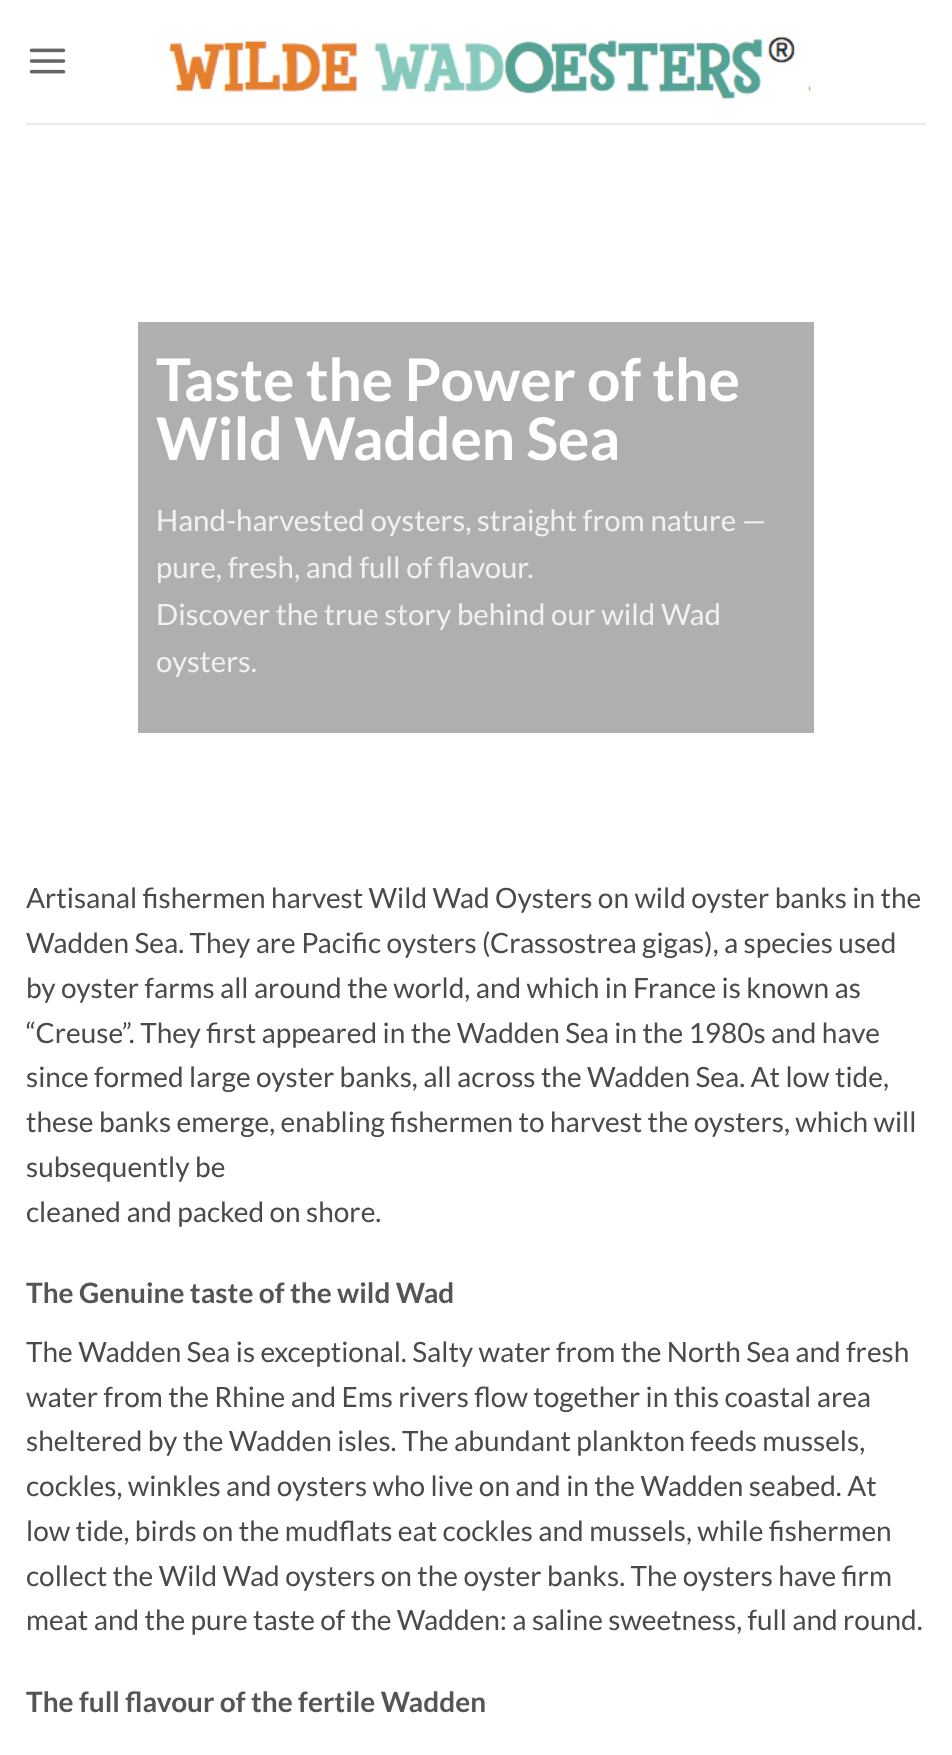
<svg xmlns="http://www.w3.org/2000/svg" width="952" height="1755">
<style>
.a{font:bold 58.75px Lato;fill:#fff}
.b{font:29.4px Lato;fill:#f1f1f1}
.c{font:28px Lato;fill:#4a4a4a}
.d{font:bold 28px Lato;fill:#555}
</style>
<rect width="100%" height="100%" fill="#fff"/>
<image href="1.png" x="29" y="48" width="37" height="26"/>
<image href="2.png" x="168" y="36" width="643" height="63"/>
<path fill="#ededed" d="M26 123h900v2H26z"/>
<path fill="#afafaf" d="M138 322h676v411H138z"/>
<text class="a" x="156" y="401">Taste the Power of the</text>
<text class="a" x="156" y="460">Wild Wadden Sea</text>
<text class="b" x="156" y="531">Hand-harvested oysters, straight from nature —</text>
<text class="b" x="156" y="578">pure, fresh, and full of flavour.</text>
<text class="b" x="156" y="625">Discover the true story behind our wild Wad</text>
<text class="b" x="156" y="672">oysters.</text>
<text class="c" x="26" y="908">Artisanal fishermen harvest Wild Wad Oysters on wild oyster banks in the</text>
<text class="c" x="26" y="953">Wadden Sea. They are Pacific oysters (Crassostrea gigas), a species used</text>
<text class="c" x="26" y="998">by oyster farms all around the world, and which in France is known as</text>
<text class="c" x="26" y="1043">“Creuse”. They first appeared in the Wadden Sea in the 1980s and have</text>
<text class="c" x="26" y="1087">since formed large oyster banks, all across the Wadden Sea. At low tide,</text>
<text class="c" x="26" y="1132">these banks emerge, enabling fishermen to harvest the oysters, which will</text>
<text class="c" x="26" y="1177">subsequently be</text>
<text class="c" x="26" y="1222">cleaned and packed on shore.</text>
<text class="d" x="26" y="1303">The Genuine taste of the wild Wad</text>
<text class="c" x="26" y="1362">The Wadden Sea is exceptional. Salty water from the North Sea and fresh</text>
<text class="c" x="26" y="1407">water from the Rhine and Ems rivers flow together in this coastal area</text>
<text class="c" x="26" y="1451">sheltered by the Wadden isles. The abundant plankton feeds mussels,</text>
<text class="c" x="26" y="1496">cockles, winkles and oysters who live on and in the Wadden seabed. At</text>
<text class="c" x="26" y="1541">low tide, birds on the mudflats eat cockles and mussels, while fishermen</text>
<text class="c" x="26" y="1586">collect the Wild Wad oysters on the oyster banks. The oysters have firm</text>
<text class="c" x="26" y="1630">meat and the pure taste of the Wadden: a saline sweetness, full and round.</text>
<text class="d" x="26" y="1712">The full flavour of the fertile Wadden</text>
</svg>
